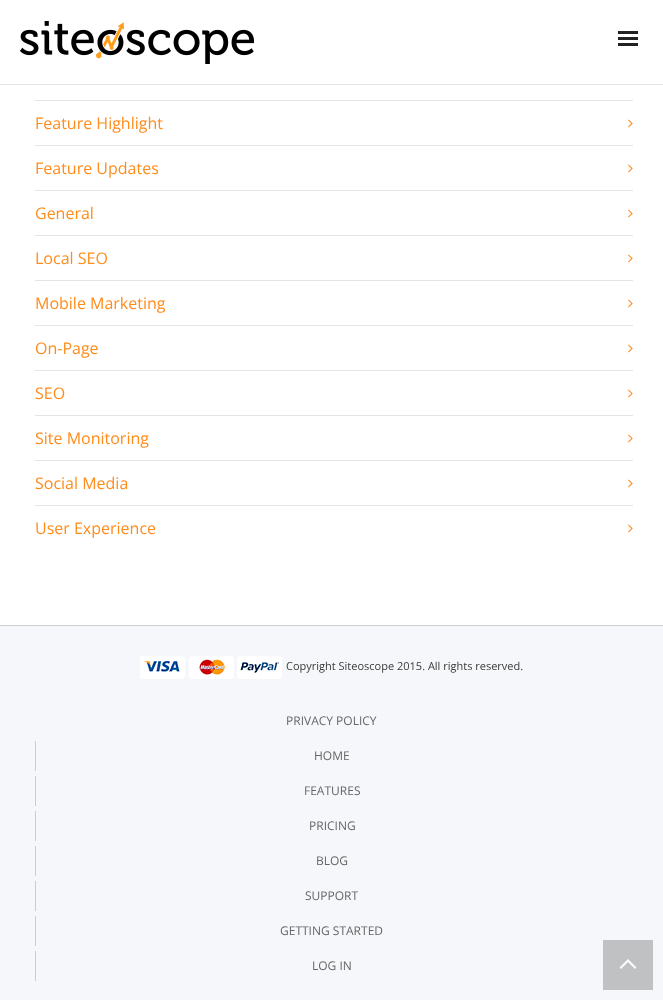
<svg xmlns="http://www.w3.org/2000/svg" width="663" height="1000">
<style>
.a{font:16px Open Sans;fill:#ff8c1b}
.b{font:11px Open Sans;fill:#3a3a3a}
.c{font:12px Open Sans;fill:#666}
</style>
<rect width="100%" height="100%" fill="#f5f7fa"/>
<path fill="#fff" d="M0 0h663v84H0z"/>
<path fill="#e4e4e4" d="M0 84h663v1H0z"/>
<image href="1.png" x="20" y="21" width="234" height="43"/>
<path fill="#222" d="M618 37h20v3H618z"/>
<path fill="#222" d="M618 31h20v3H618z"/>
<path fill="#222" d="M618 43h20v3H618z"/>
<path fill="#fff" d="M0 85h663v540H0z"/>
<path fill="#e4e4e4" d="M35 100h598v1H35z"/>
<image href="2.png" x="628" y="119" width="5" height="9"/>
<path fill="#e4e4e4" d="M35 145h598v1H35z"/>
<image href="2.png" x="628" y="164" width="5" height="9"/>
<path fill="#e4e4e4" d="M35 190h598v1H35z"/>
<image href="2.png" x="628" y="209" width="5" height="9"/>
<path fill="#e4e4e4" d="M35 235h598v1H35z"/>
<image href="2.png" x="628" y="254" width="5" height="9"/>
<path fill="#e4e4e4" d="M35 280h598v1H35z"/>
<image href="2.png" x="628" y="299" width="5" height="9"/>
<path fill="#e4e4e4" d="M35 325h598v1H35z"/>
<image href="2.png" x="628" y="344" width="5" height="9"/>
<path fill="#e4e4e4" d="M35 370h598v1H35z"/>
<image href="2.png" x="628" y="389" width="5" height="9"/>
<path fill="#e4e4e4" d="M35 415h598v1H35z"/>
<image href="2.png" x="628" y="434" width="5" height="9"/>
<path fill="#e4e4e4" d="M35 460h598v1H35z"/>
<image href="2.png" x="628" y="479" width="5" height="9"/>
<path fill="#e4e4e4" d="M35 505h598v1H35z"/>
<image href="2.png" x="628" y="524" width="5" height="9"/>
<path fill="#cdcdcd" d="M0 625h663v1H0z"/>
<image href="3.png" x="140" y="656" width="45" height="23"/>
<image href="4.png" x="189" y="656" width="45" height="23"/>
<image href="5.png" x="237" y="656" width="45" height="23"/>
<path fill="#cdcdcd" d="M35 741h1v30H35z"/>
<path fill="#cdcdcd" d="M35 776h1v30H35z"/>
<path fill="#cdcdcd" d="M35 811h1v30H35z"/>
<path fill="#cdcdcd" d="M35 846h1v30H35z"/>
<path fill="#cdcdcd" d="M35 881h1v30H35z"/>
<path fill="#cdcdcd" d="M35 916h1v30H35z"/>
<path fill="#cdcdcd" d="M35 951h1v30H35z"/>
<path fill="#bfc1c3" d="M603 940h50v50H603z"/>
<path fill="#fbfcfd" d="M635 969l-7-7l-7 7l-1.5-1.5l8.5-8.5l8.5 8.5z"/>
<text class="a" x="35" y="129">Feature Highlight</text>
<text class="a" x="35" y="174">Feature Updates</text>
<text class="a" x="35" y="219">General</text>
<text class="a" x="35" y="264">Local SEO</text>
<text class="a" x="35" y="309">Mobile Marketing</text>
<text class="a" x="35" y="354">On-Page</text>
<text class="a" x="35" y="399">SEO</text>
<text class="a" x="35" y="444">Site Monitoring</text>
<text class="a" x="35" y="489">Social Media</text>
<text class="a" x="35" y="534">User Experience</text>
<text class="b" x="286" y="670">Copyright Siteoscope 2015. All rights reserved.</text>
<text class="c" x="286" y="725">PRIVACY POLICY</text>
<text class="c" x="314" y="760">HOME</text>
<text class="c" x="304" y="795">FEATURES</text>
<text class="c" x="309" y="830">PRICING</text>
<text class="c" x="316" y="865">BLOG</text>
<text class="c" x="305" y="900">SUPPORT</text>
<text class="c" x="280" y="935">GETTING STARTED</text>
<text class="c" x="312" y="970">LOG IN</text>
</svg>
